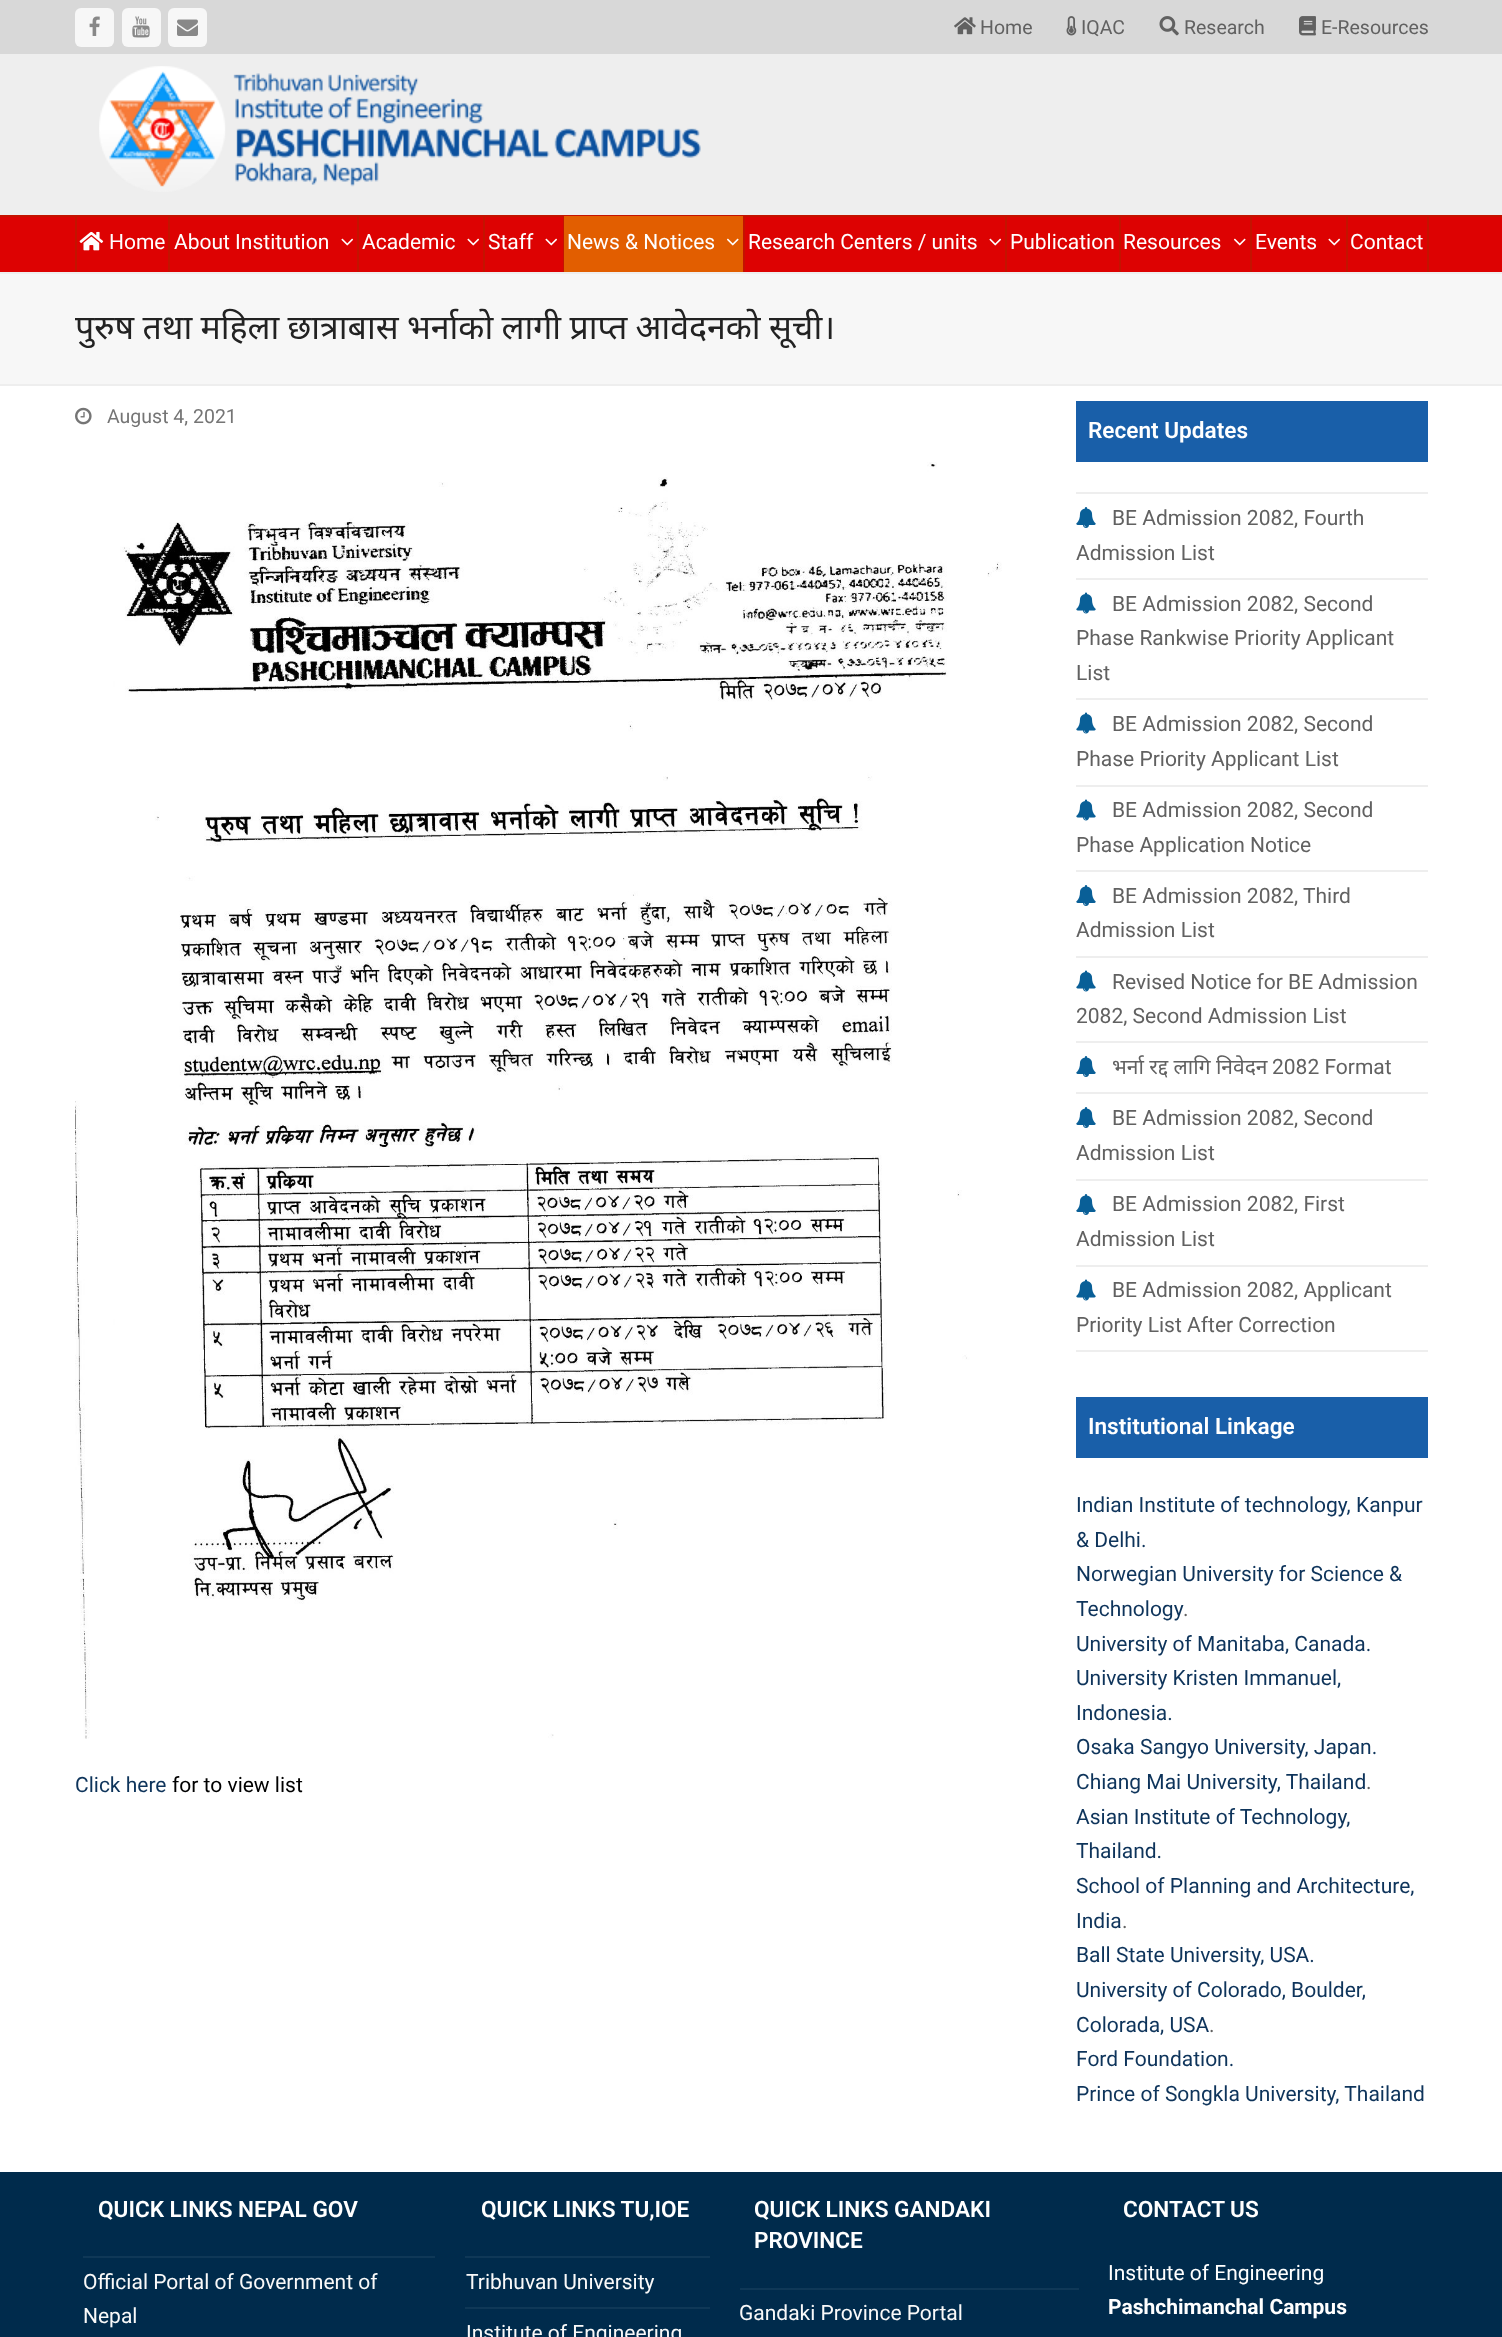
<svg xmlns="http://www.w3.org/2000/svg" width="1502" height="2337">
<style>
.a{font:19.5px Roboto;fill:#616161}
.b{font:21px Roboto;fill:#fff}
.c{font:33.9px Noto Sans;fill:#222}
.d{font:19.5px Roboto;fill:#757575}
.e{font:21px Roboto;fill:#0e345b}
.f{font:21px Roboto;fill:#000}
.g{font:600 22.6px Roboto;fill:#fff}
.h{font:21px Roboto;fill:#616161}
.i{font:21px Noto Sans;fill:#616161}
.j{font:21px Roboto;fill:#f9f9f9}
.k{font:bold 21px Roboto;fill:#fff}
</style>
<rect width="100%" height="100%" fill="#fff"/>
<path fill="#d8d8d8" d="M0 0h1502v54H0z"/>
<rect fill="#f7f7f7" x="75" y="8" width="39" height="39" rx="6"/>
<image href="1.png" x="89" y="16" width="11" height="20"/>
<rect fill="#f7f7f7" x="122" y="8" width="39" height="39" rx="6"/>
<image href="2.png" x="132" y="16" width="18" height="22"/>
<rect fill="#f7f7f7" x="168" y="8" width="39" height="39" rx="6"/>
<image href="3.png" x="177" y="19" width="21" height="17"/>
<image href="4.png" x="954" y="17" width="22" height="18"/>
<image href="5.png" x="1066" y="16" width="11" height="20"/>
<image href="6.png" x="1159" y="16" width="20" height="20"/>
<image href="7.png" x="1299" y="16" width="17" height="20"/>
<path fill="#eee" d="M0 54h1502v161H0z"/>
<image href="8.png" x="99" y="66" width="602" height="126"/>
<path fill="#dd0202" d="M0 217h1502v55H0z"/>
<path fill="#c41300" d="M0 215h1502v2H0z"/>
<path fill="#c41300" d="M75 216h2v56H75z"/>
<path fill="#c41300" d="M168 216h2v56H168z"/>
<image href="9.png" x="79" y="231" width="25" height="20"/>
<path fill="#c41300" d="M357 216h2v56H357z"/>
<image href="10.png" x="341" y="238" width="13" height="8"/>
<path fill="#c41300" d="M483 216h2v56H483z"/>
<image href="10.png" x="467" y="238" width="13" height="8"/>
<path fill="#c41300" d="M563 216h1v56H563z"/>
<image href="10.png" x="545" y="238" width="13" height="8"/>
<path fill="#c41300" d="M743 216h2v56H743z"/>
<path fill="#e25e00" d="M564 216h179v56H564z"/>
<image href="11.png" x="726" y="238" width="13" height="8"/>
<path fill="#c41300" d="M1005 216h2v56H1005z"/>
<image href="10.png" x="989" y="238" width="13" height="8"/>
<path fill="#c41300" d="M1119 216h2v56H1119z"/>
<path fill="#c41300" d="M1250 216h2v56H1250z"/>
<image href="12.png" x="1233" y="238" width="13" height="8"/>
<path fill="#c41300" d="M1346 216h2v56H1346z"/>
<image href="10.png" x="1328" y="238" width="13" height="8"/>
<path fill="#c41300" d="M1427 216h2v56H1427z"/>
<path fill="#f7f7f7" d="M0 274h1502v110H0z"/>
<path fill="#eee" d="M0 272h1502v2H0z"/>
<path fill="#eee" d="M0 384h1502v2H0z"/>
<image href="13.png" x="75" y="407" width="17" height="18"/>
<image href="14.png" x="75" y="462" width="927" height="1277"/>
<path fill="#195fa9" d="M1076 401h352v61H1076z"/>
<path fill="#eee" d="M1076 492h352v2H1076z"/>
<path fill="#eee" d="M1076 578h352v2H1076z"/>
<image href="15.png" x="1076" y="507" width="20" height="21"/>
<path fill="#eee" d="M1076 698h352v2H1076z"/>
<image href="16.png" x="1076" y="592" width="20" height="22"/>
<path fill="#eee" d="M1076 785h352v2H1076z"/>
<image href="16.png" x="1076" y="712" width="20" height="22"/>
<path fill="#eee" d="M1076 870h352v2H1076z"/>
<image href="16.png" x="1076" y="799" width="20" height="22"/>
<path fill="#eee" d="M1076 956h352v2H1076z"/>
<image href="15.png" x="1076" y="885" width="20" height="21"/>
<path fill="#eee" d="M1076 1041h352v2H1076z"/>
<image href="16.png" x="1076" y="970" width="20" height="22"/>
<path fill="#eee" d="M1076 1092h352v2H1076z"/>
<image href="15.png" x="1076" y="1056" width="20" height="21"/>
<path fill="#eee" d="M1076 1179h352v2H1076z"/>
<image href="15.png" x="1076" y="1107" width="20" height="21"/>
<path fill="#eee" d="M1076 1265h352v2H1076z"/>
<image href="15.png" x="1076" y="1194" width="20" height="21"/>
<path fill="#eee" d="M1076 1350h352v2H1076z"/>
<image href="16.png" x="1076" y="1279" width="20" height="22"/>
<path fill="#195fa9" d="M1076 1397h352v61H1076z"/>
<path fill="#002b4c" d="M0 2172h1502v165H0z"/>
<path fill="#0f3857" d="M83 2256h352v2H83z"/>
<path fill="#0f3857" d="M465 2256h245v2H465z"/>
<path fill="#0f3857" d="M465 2307h245v2H465z"/>
<path fill="#0f3857" d="M740 2288h339v2H740z"/>
<text class="a" x="980" y="34">Home</text>
<text class="a" x="1081" y="34">IQAC</text>
<text class="a" x="1184" y="34">Research</text>
<text class="a" x="1321" y="34">E-Resources</text>
<text class="b" x="109" y="249">Home</text>
<text class="b" x="174" y="249">About Institution</text>
<text class="b" x="362" y="249">Academic</text>
<text class="b" x="488" y="249">Staff</text>
<text class="b" x="567" y="249">News &amp; Notices</text>
<text class="b" x="748" y="249">Research Centers / units</text>
<text class="b" x="1010" y="249">Publication</text>
<text class="b" x="1123" y="249">Resources</text>
<text class="b" x="1255" y="249">Events</text>
<text class="b" x="1350" y="249">Contact</text>
<text class="c" x="75" y="339" word-spacing="-0.5">पुरुष तथा महिला छात्राबास भर्नाको लागी प्राप्त आवेदनको सूची।</text>
<text class="d" x="107" y="423">August 4, 2021</text>
<text class="e" x="75" y="1792">Click here</text>
<text class="f" x="172" y="1792">for to view list</text>
<text class="g" x="1088" y="438">Recent Updates</text>
<text class="h" x="1112" y="525">BE Admission 2082, Fourth</text>
<text class="h" x="1076" y="560">Admission List</text>
<text class="h" x="1112" y="611">BE Admission 2082, Second</text>
<text class="h" x="1076" y="645">Phase Rankwise Priority Applicant</text>
<text class="h" x="1076" y="680">List</text>
<text class="h" x="1112" y="731">BE Admission 2082, Second</text>
<text class="h" x="1076" y="766">Phase Priority Applicant List</text>
<text class="h" x="1112" y="817">BE Admission 2082, Second</text>
<text class="h" x="1076" y="852">Phase Application Notice</text>
<text class="h" x="1112" y="903">BE Admission 2082, Third</text>
<text class="h" x="1076" y="937">Admission List</text>
<text class="h" x="1112" y="989">Revised Notice for BE Admission</text>
<text class="h" x="1076" y="1023">2082, Second Admission List</text>
<text class="i" x="1112" y="1074">भर्ना रद्द लागि निवेदन</text>
<text class="h" x="1272" y="1074">2082 Format</text>
<text class="h" x="1112" y="1125">BE Admission 2082, Second</text>
<text class="h" x="1076" y="1160">Admission List</text>
<text class="h" x="1112" y="1211">BE Admission 2082, First</text>
<text class="h" x="1076" y="1246">Admission List</text>
<text class="h" x="1112" y="1297">BE Admission 2082, Applicant</text>
<text class="h" x="1076" y="1332">Priority List After Correction</text>
<text class="g" x="1088" y="1434">Institutional Linkage</text>
<text class="e" x="1076" y="1512">Indian Institute of technology, Kanpur</text>
<text class="e" x="1076" y="1547">&amp; Delhi.</text>
<text class="e" x="1076" y="1581">Norwegian University for Science &amp;</text>
<text class="e" x="1076" y="1616">Technology</text>
<text class="h" x="1183" y="1616">.</text>
<text class="e" x="1076" y="1651">University of Manitaba, Canada.</text>
<text class="e" x="1076" y="1685">University Kristen Immanuel,</text>
<text class="e" x="1076" y="1720">Indonesia.</text>
<text class="e" x="1076" y="1754">Osaka Sangyo University, Japan.</text>
<text class="e" x="1076" y="1789">Chiang Mai University, Thailand</text>
<text class="h" x="1366" y="1789">.</text>
<text class="e" x="1076" y="1824">Asian Institute of Technology,</text>
<text class="e" x="1076" y="1858">Thailand.</text>
<text class="e" x="1076" y="1893">School of Planning and Architecture,</text>
<text class="e" x="1076" y="1928">India</text>
<text class="h" x="1122" y="1928">.</text>
<text class="e" x="1076" y="1962">Ball State University, USA.</text>
<text class="e" x="1076" y="1997">University of Colorado, Boulder,</text>
<text class="e" x="1076" y="2032">Colorada, USA</text>
<text class="h" x="1209" y="2032">.</text>
<text class="e" x="1076" y="2066">Ford Foundation.</text>
<text class="e" x="1076" y="2101">Prince of Songkla University, Thailand</text>
<text class="g" x="98" y="2217">QUICK LINKS NEPAL GOV</text>
<text class="j" x="83" y="2289">Official Portal of Government of</text>
<text class="j" x="83" y="2323">Nepal</text>
<text class="g" x="481" y="2217">QUICK LINKS TU,IOE</text>
<text class="j" x="466" y="2289">Tribhuvan University</text>
<text class="j" x="466" y="2340">Institute of Engineering</text>
<text class="g" x="754" y="2217">QUICK LINKS GANDAKI</text>
<text class="g" x="754" y="2248">PROVINCE</text>
<text class="j" x="739" y="2320">Gandaki Province Portal</text>
<text class="g" x="1123" y="2217">CONTACT US</text>
<text class="b" x="1108" y="2280">Institute of Engineering</text>
<text class="k" x="1108" y="2314">Pashchimanchal Campus</text>
</svg>
